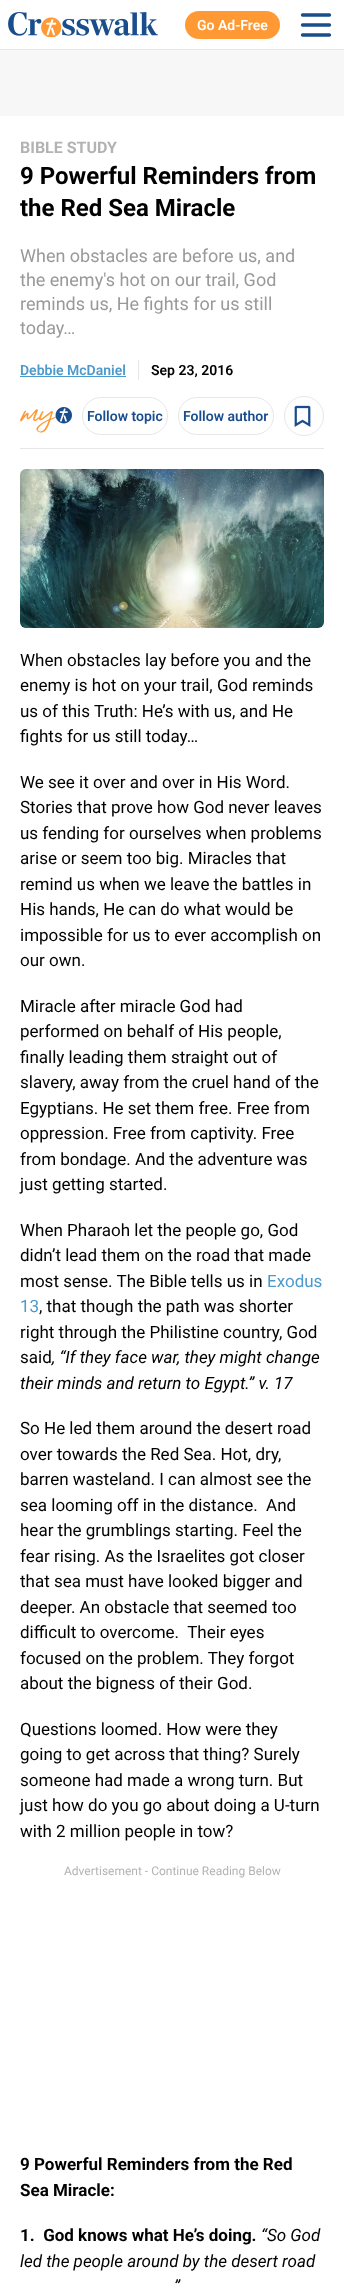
<svg xmlns="http://www.w3.org/2000/svg" width="344" height="2284">
<style>
.a{font:600 14px Roboto;fill:#fff}
.b{font:bold 16px Roboto;fill:#b3b3b3}
.c{font:bold 24px Roboto;fill:#000}
.d{font:18px Roboto;fill:#999}
.e{font:600 14px Roboto;fill:#4d99cc}
.f{font:600 14px Roboto;fill:#000}
.g{font:600 14px Roboto;fill:#1a4d8c}
.h{font:17px Roboto;fill:#000}
.i{font:17px Roboto;fill:#4d99cc}
.j{font:italic 17px Roboto;fill:#000}
.k{font:12px Roboto;fill:#b3b3b3}
.l{font:bold 17px Roboto;fill:#000}
</style>
<rect width="100%" height="100%" fill="#fff"/>
<path fill="#e5e7eb" d="M0 49h344v1H0z"/>
<image href="1.png" x="8" y="12" width="150" height="25"/>
<rect fill="#f93" x="185" y="11" width="95" height="28" rx="14"/>
<path fill="none" stroke="#1a4d8c" stroke-width="3.3" stroke-linecap="round" stroke-linejoin="round" d="M302.5 15h27m-27 10h27m-27 10h27"/>
<path fill="#f7f7f7" d="M0 50h344v66H0z"/>
<path fill="#4d99cc" d="M20 376h106v1H20z"/>
<path fill="#e5e7eb" d="M138 360h1v20H138z"/>
<path fill="#e5e7eb" d="M20 448h304v1H20z"/>
<image href="2.png" x="20" y="407" width="52" height="26"/>
<rect fill="none" stroke="#e5e7eb" x="82.5" y="397.5" width="85" height="37" rx="18.5"/>
<rect fill="none" stroke="#e5e7eb" x="178.5" y="397.5" width="95" height="37" rx="18.5"/>
<circle fill="none" stroke="#e5e7eb" cx="304" cy="416" r="19.5"/>
<image href="3.png" x="294" y="405" width="17" height="22"/>
<image href="4.png" x="20" y="469" width="304" height="159"/>
<text class="a" x="197" y="30">Go Ad-Free</text>
<text class="b" x="20" y="153">BIBLE STUDY</text>
<text class="c" x="20" y="184">9 Powerful Reminders from</text>
<text class="c" x="20" y="216">the Red Sea Miracle</text>
<text class="d" x="20" y="262">When obstacles are before us, and</text>
<text class="d" x="20" y="286">the enemy's hot on our trail, God</text>
<text class="d" x="20" y="310">reminds us, He fights for us still</text>
<text class="d" x="20" y="334">today…</text>
<text class="e" x="20" y="375">Debbie McDaniel</text>
<text class="f" x="151" y="375">Sep 23, 2016</text>
<text class="g" x="87" y="421">Follow topic</text>
<text class="g" x="183" y="421">Follow author</text>
<text class="h" x="20" y="666">When obstacles lay before you and the</text>
<text class="h" x="20" y="691">enemy is hot on your trail, God reminds</text>
<text class="h" x="20" y="717">us of this Truth: He’s with us, and He</text>
<text class="h" x="20" y="742">fights for us still today…</text>
<text class="h" x="20" y="788">We see it over and over in His Word.</text>
<text class="h" x="20" y="813">Stories that prove how God never leaves</text>
<text class="h" x="20" y="839">us fending for ourselves when problems</text>
<text class="h" x="20" y="864">arise or seem too big. Miracles that</text>
<text class="h" x="20" y="890">remind us when we leave the battles in</text>
<text class="h" x="20" y="915">His hands, He can do what would be</text>
<text class="h" x="20" y="941">impossible for us to ever accomplish on</text>
<text class="h" x="20" y="966">our own.</text>
<text class="h" x="20" y="1012">Miracle after miracle God had</text>
<text class="h" x="20" y="1037">performed on behalf of His people,</text>
<text class="h" x="20" y="1063">finally leading them straight out of</text>
<text class="h" x="20" y="1088">slavery, away from the cruel hand of the</text>
<text class="h" x="20" y="1114">Egyptians. He set them free. Free from</text>
<text class="h" x="20" y="1139">oppression. Free from captivity. Free</text>
<text class="h" x="20" y="1165">from bondage. And the adventure was</text>
<text class="h" x="20" y="1190">just getting started.</text>
<text class="h" x="20" y="1236">When Pharaoh let the people go, God</text>
<text class="h" x="20" y="1261">didn’t lead them on the road that made</text>
<text class="h" x="20" y="1287">most sense. The Bible tells us in</text>
<text class="i" x="267" y="1287">Exodus</text>
<text class="i" x="20" y="1312">13</text>
<text class="h" x="39" y="1312">, that though the path was shorter</text>
<text class="h" x="20" y="1338">right through the Philistine country, God</text>
<text class="h" x="20" y="1363">said</text>
<text class="j" x="52" y="1363">, “If they face war, they might change</text>
<text class="j" x="20" y="1389">their minds and return to Egypt.” v. 17</text>
<text class="h" x="20" y="1434">So He led them around the desert road</text>
<text class="h" x="20" y="1460">over towards the Red Sea. Hot, dry,</text>
<text class="h" x="20" y="1485">barren wasteland. I can almost see the</text>
<text class="h" xml:space="preserve" x="20" y="1511">sea looming off in the distance.  And</text>
<text class="h" x="20" y="1536">hear the grumblings starting. Feel the</text>
<text class="h" x="20" y="1562">fear rising. As the Israelites got closer</text>
<text class="h" x="20" y="1587">that sea must have looked bigger and</text>
<text class="h" x="20" y="1613">deeper. An obstacle that seemed too</text>
<text class="h" xml:space="preserve" x="20" y="1638">difficult to overcome.  Their eyes</text>
<text class="h" x="20" y="1664">focused on the problem. They forgot</text>
<text class="h" x="20" y="1689">about the bigness of their God.</text>
<text class="h" x="20" y="1735">Questions loomed. How were they</text>
<text class="h" x="20" y="1760">going to get across that thing? Surely</text>
<text class="h" x="20" y="1786">someone had made a wrong turn. But</text>
<text class="h" x="20" y="1811">just how do you go about doing a U-turn</text>
<text class="h" x="20" y="1837">with 2 million people in tow?</text>
<text class="k" x="64" y="1875">Advertisement - Continue Reading Below</text>
<text class="l" x="20" y="2170">9 Powerful Reminders from the Red</text>
<text class="l" x="20" y="2196">Sea Miracle:</text>
<text class="l" xml:space="preserve" x="20" y="2241">1.  God knows what He’s doing.</text>
<text class="j" x="261" y="2241">“So God</text>
<text class="j" x="20" y="2267">led the people around by the desert road</text>
<text class="j" x="174" y="2292">”</text>
</svg>
